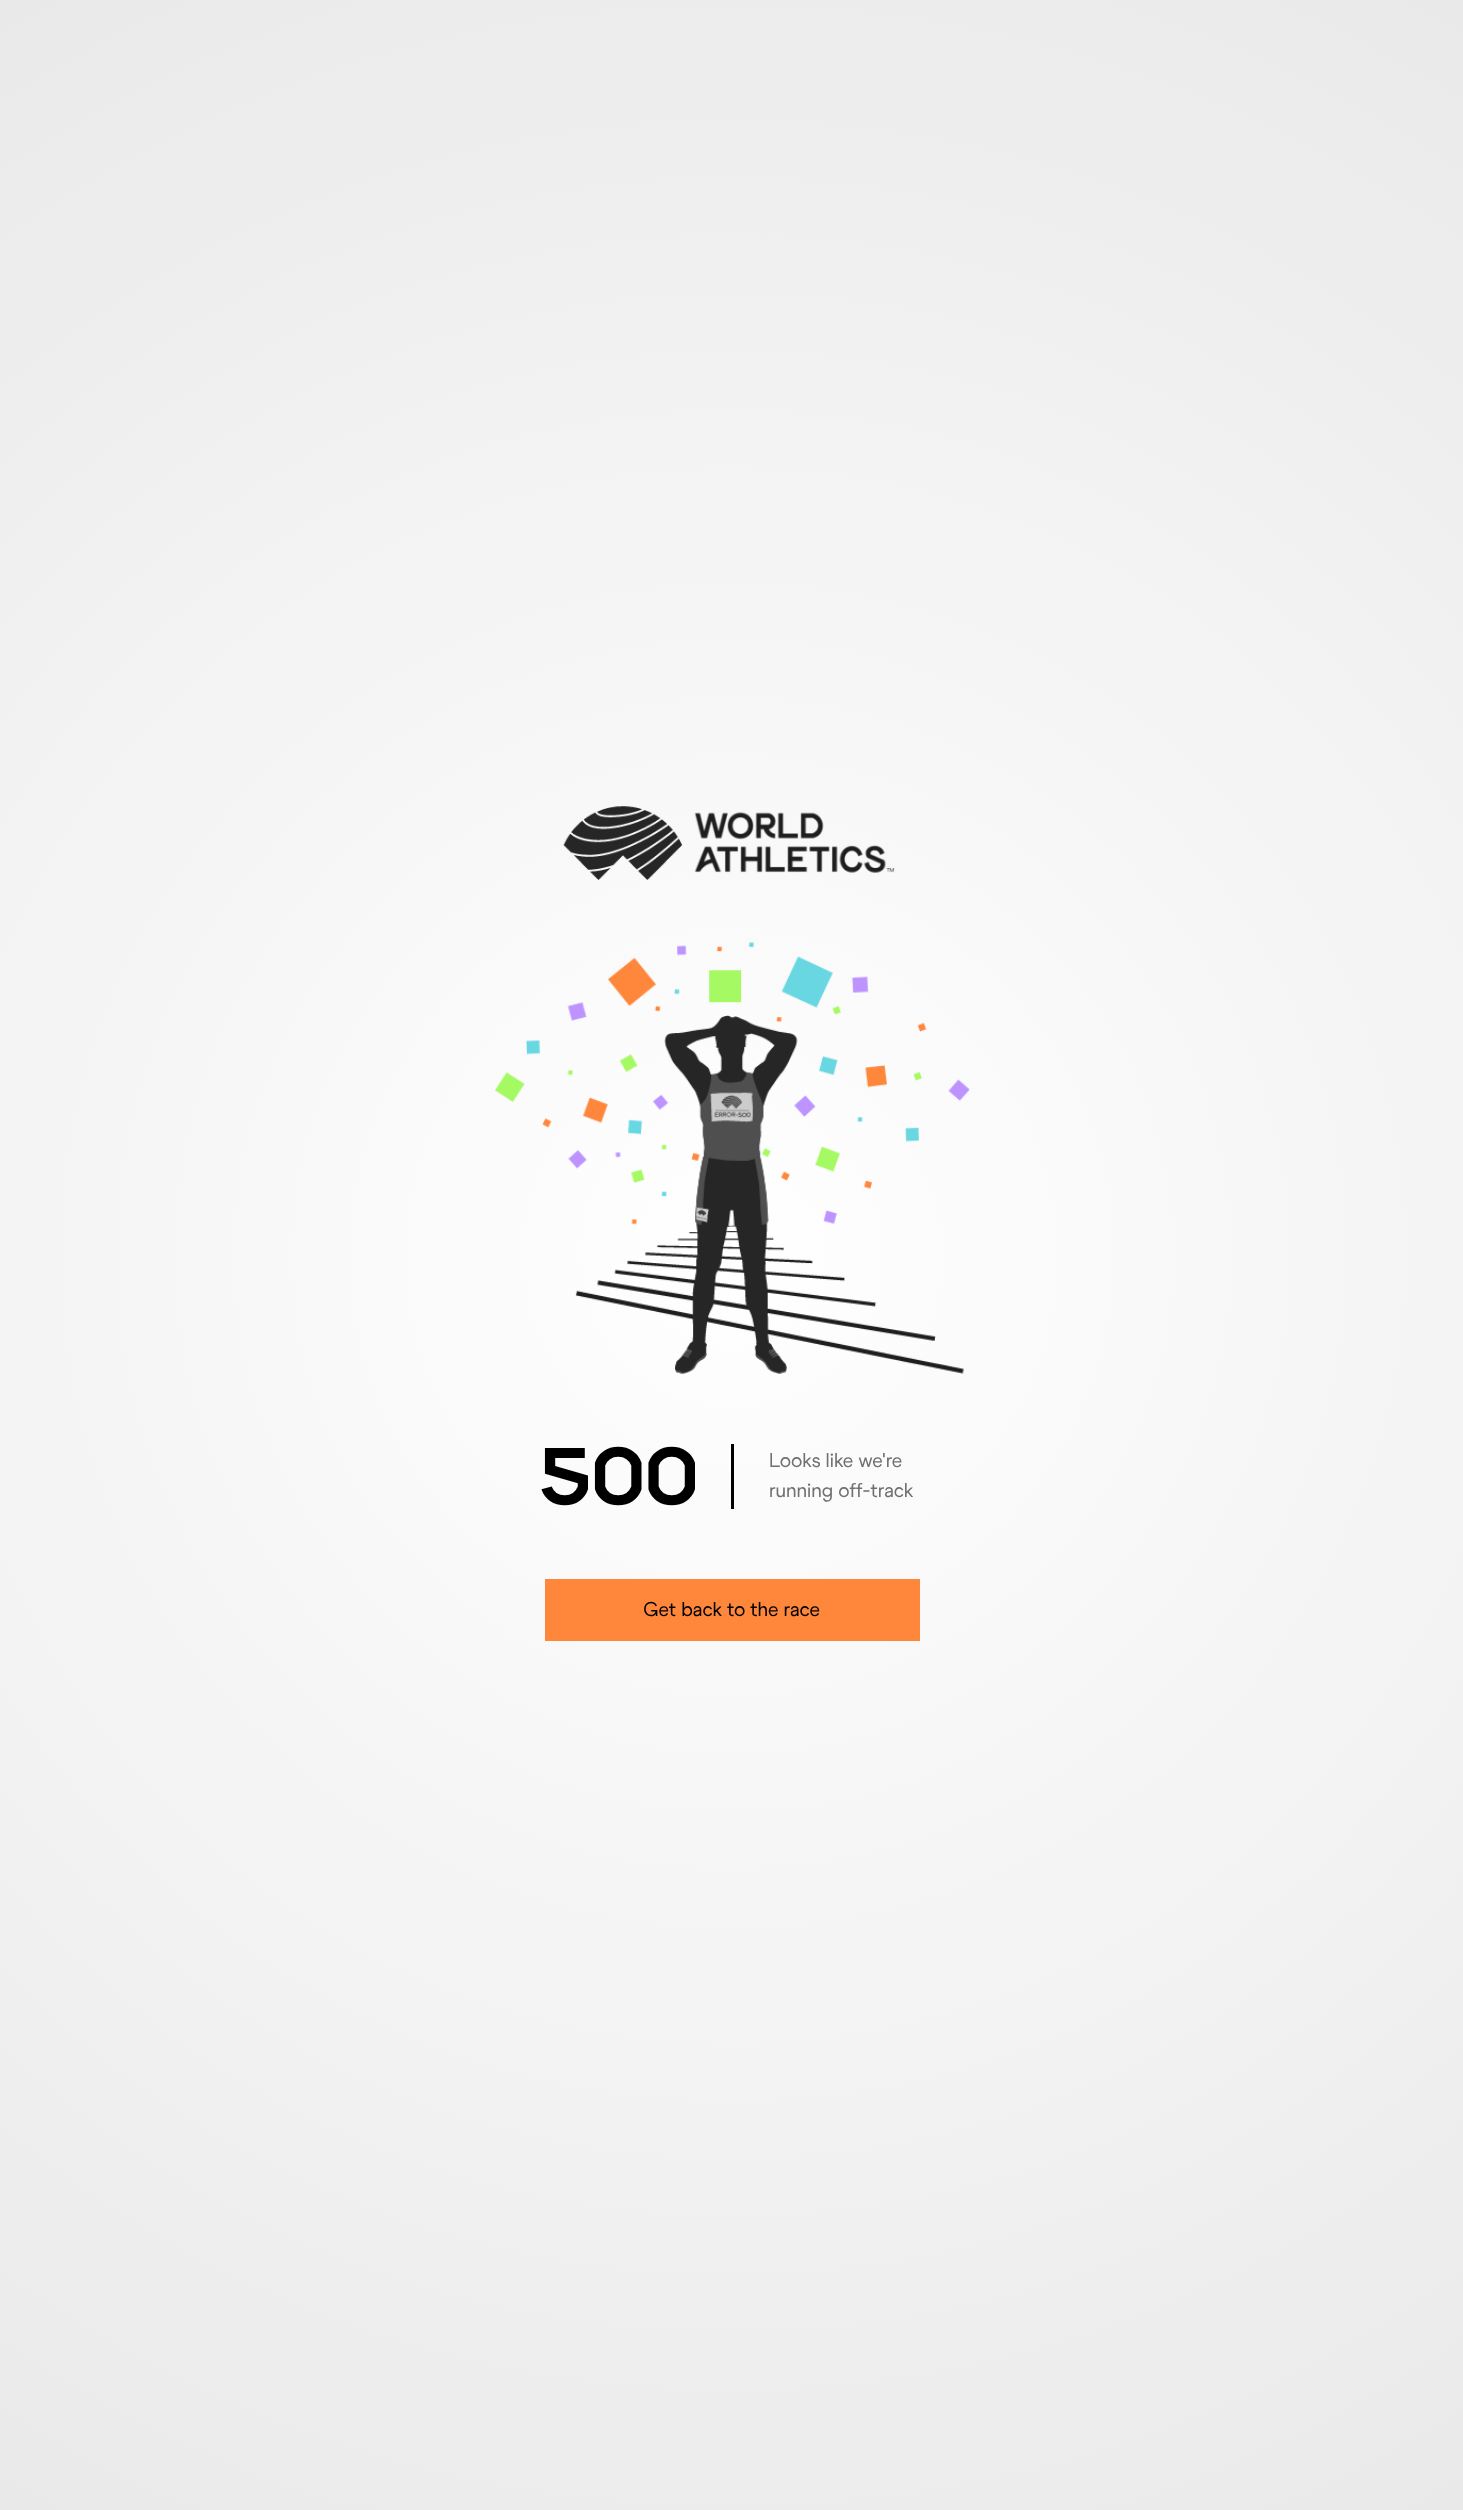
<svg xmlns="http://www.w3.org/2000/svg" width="1463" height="2510">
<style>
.a{font:800 80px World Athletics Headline;fill:#000}
.b{font:20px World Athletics;fill:#707070}
.c{font:20px World Athletics;fill:#000}
</style>
<defs>
<radialGradient id="g1" gradientUnits="userSpaceOnUse" cx="732" cy="1255" r="1453"><stop offset="0" stop-color="#fff"/><stop offset="1" stop-color="#e9e9e9"/></radialGradient>
</defs>
<rect width="100%" height="100%" fill="#fff"/>
<path fill="url(#g1)" d="M0 0h1463v2510H0z"/>
<image href="1.png" x="563" y="806" width="332" height="74"/>
<image href="2.png" x="495" y="942" width="475" height="432"/>
<path fill="#000" d="M731 1444h3v65H731z"/>
<path fill="#ff873c" d="M545 1579h375v62H545z"/>
<text class="a" x="538" y="1504">500</text>
<text class="b" x="769" y="1467">Looks like we're</text>
<text class="b" x="769" y="1497">running off-track</text>
<text class="c" x="643" y="1616">Get back to the race</text>
</svg>
